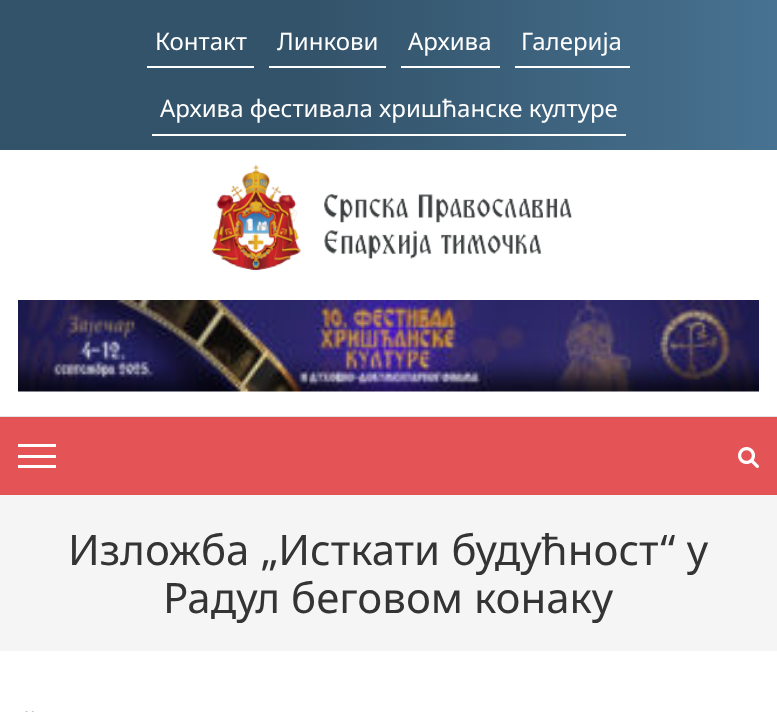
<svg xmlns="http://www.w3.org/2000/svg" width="777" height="712">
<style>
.a{font:24px Noto Sans;fill:#fff}
.b{font:42px Noto Sans;fill:#343434}
</style>
<defs>
<linearGradient id="g1" gradientUnits="userSpaceOnUse" x1="0" y1="75" x2="777" y2="75"><stop offset="0.4" stop-color="#33536a"/><stop offset="1" stop-color="#477291"/></linearGradient>
</defs>
<rect width="100%" height="100%" fill="#fff"/>
<path fill="url(#g1)" d="M0 0h777v150H0z"/>
<path fill="#fff" d="M147 66h107v2H147z"/>
<path fill="#fff" d="M269 66h117v2H269z"/>
<path fill="#fff" d="M401 66h99v2H401z"/>
<path fill="#fff" d="M515 66h115v2H515z"/>
<path fill="#fff" d="M152 134h474v2H152z"/>
<path fill="#e3e3e3" d="M0 416h777v1H0z"/>
<image href="1.png" x="211" y="165" width="362" height="105"/>
<image href="2.png" x="18" y="300" width="741" height="92"/>
<path fill="#e45457" d="M0 417h777v78H0z"/>
<path fill="#fff" d="M18 444h38v3H18z"/>
<path fill="#fff" d="M18 455h38v3H18z"/>
<path fill="#fff" d="M18 465h38v3H18z"/>
<image href="3.png" x="738" y="447" width="21" height="21"/>
<path fill="#f5f5f5" d="M0 495h777v156H0z"/>
<image href="4.png" x="25" y="711" width="9" height="1"/>
<text class="a" x="155" y="50">Контакт</text>
<text class="a" x="277" y="50">Линкови</text>
<text class="a" x="408" y="50">Архива</text>
<text class="a" x="521" y="50">Галерија</text>
<text class="a" x="160" y="117">Архива фестивала хришћанске културе</text>
<text class="b" x="68" y="565" word-spacing="0.5">Изложба „Исткати будућност“ у</text>
<text class="b" x="163" y="613">Радул беговом конаку</text>
</svg>
